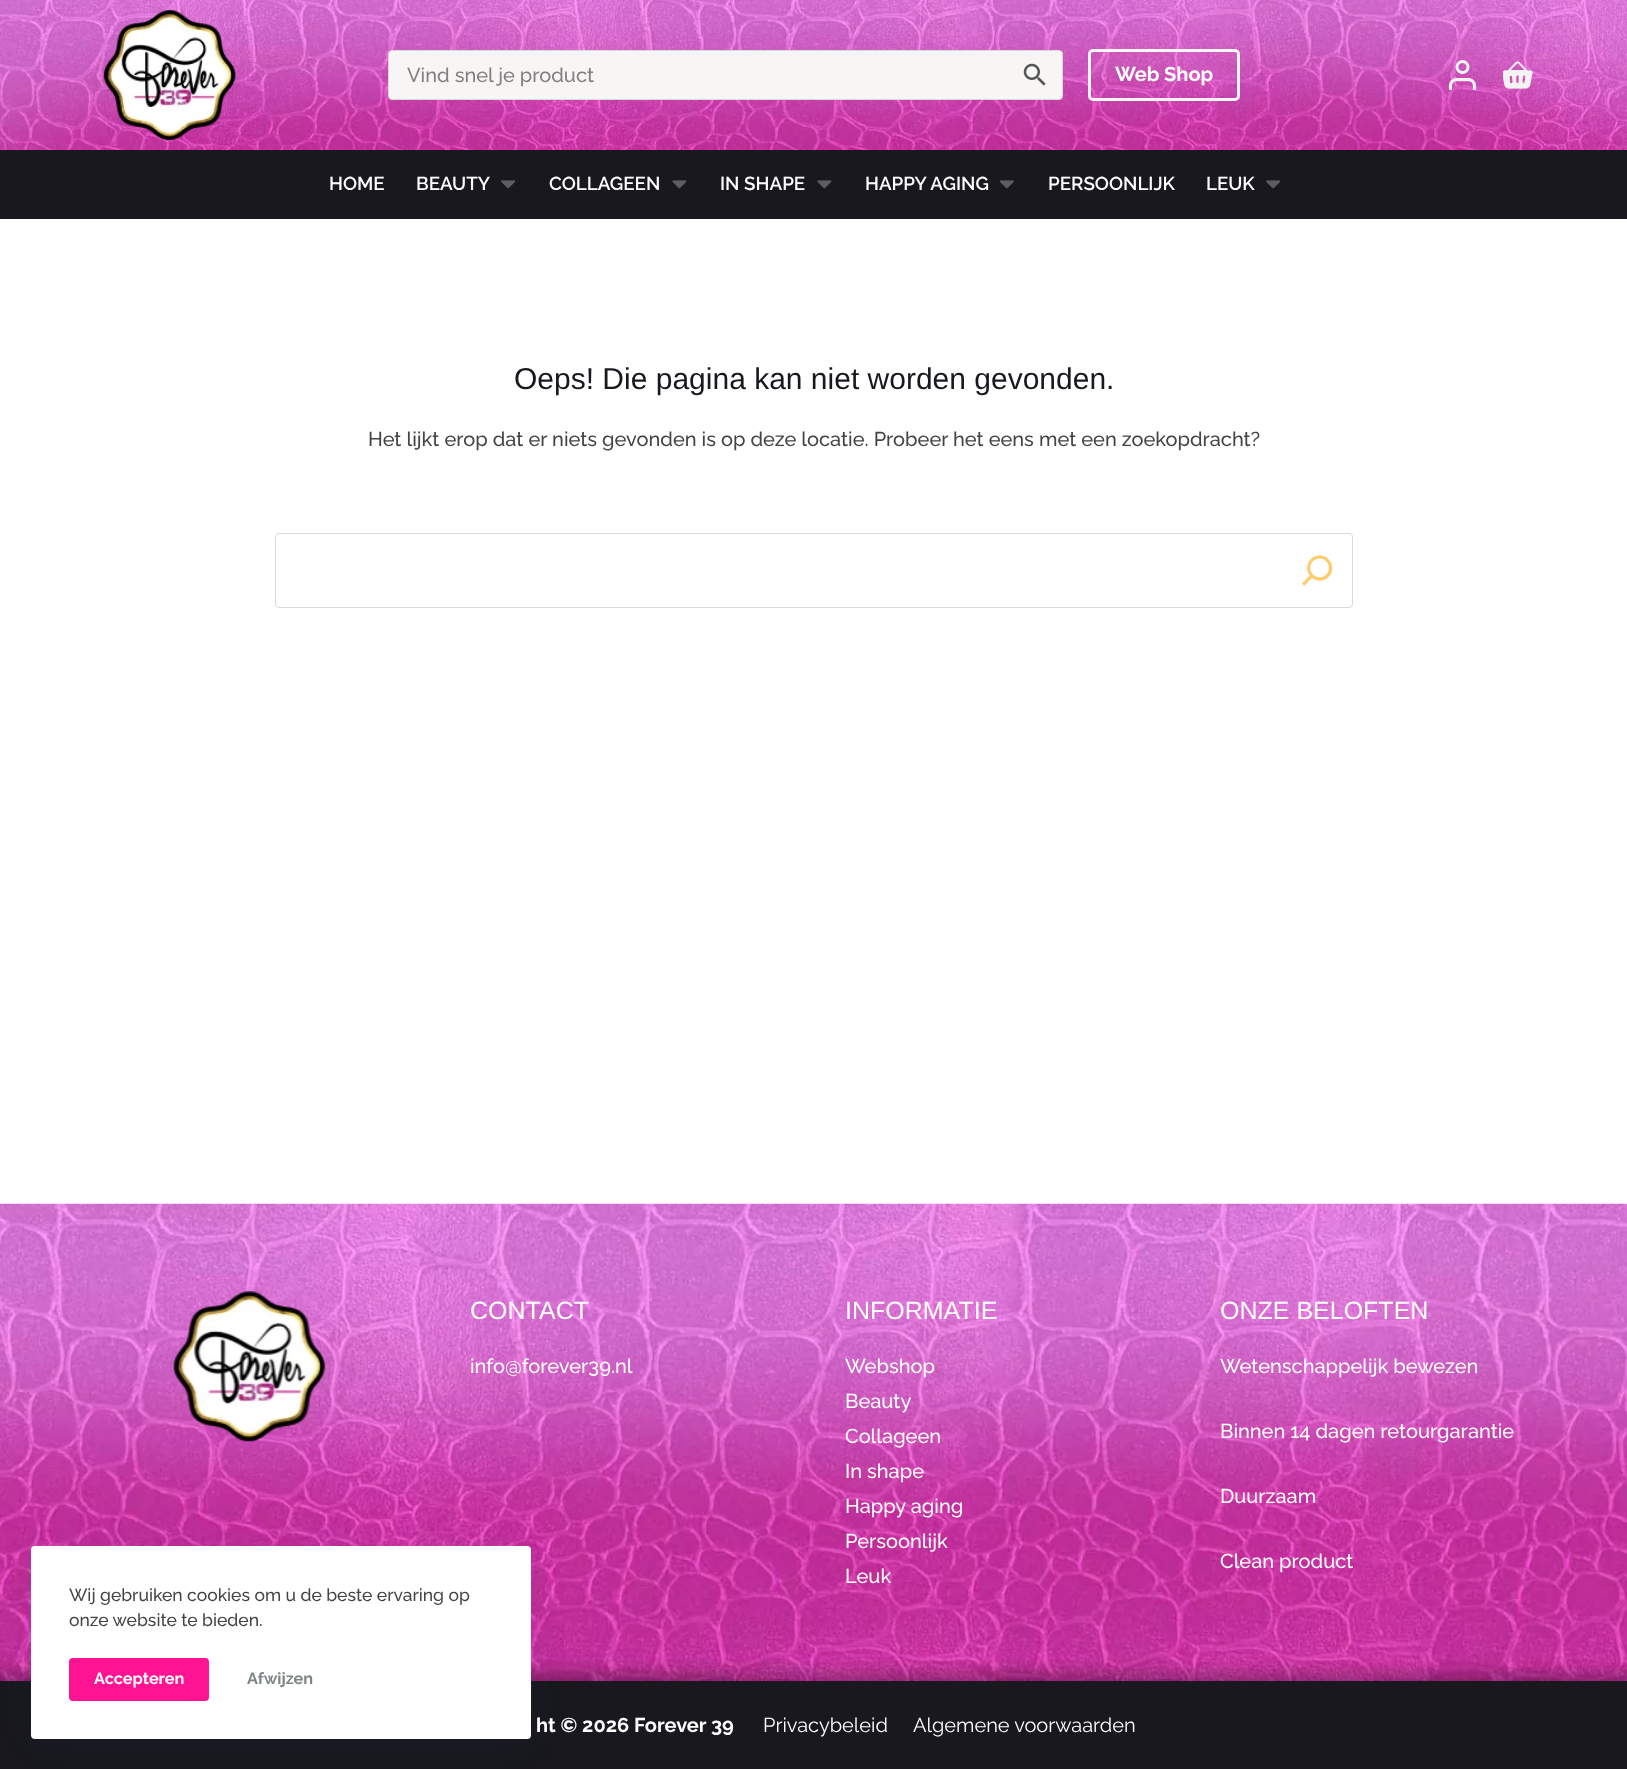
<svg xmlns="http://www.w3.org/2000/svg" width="1627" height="1769">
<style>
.a{font:500 17.5px Raleway;fill:#444}
.b{font:bold 16.25px Raleway;fill:#fff}
.c{font:bold 16.25px Raleway;fill:#7f8688}
.d{font:500 20px Raleway;fill:#817f7f}
.e{font:bold 20px Raleway;fill:#fff}
.f{font:600 18.75px Raleway;fill:#fff}
.g{font:30px Liberation Sans;fill:#18181e}
.h{font:500 20px Raleway;fill:#444}
.i{font:25px Liberation Sans;fill:#fff}
.j{font:500 20px Raleway;fill:#fff}
.k{font:20px Raleway;fill:#fff}
</style>
<rect width="100%" height="100%" fill="#fff"/>
<image href="10.png" x="0" y="1203" width="1627" height="478"/>
<path fill="#18181e" d="M0 1681h1627v88H0z"/>
<path fill="#22386526" filter="blur(19px)" d="M38 1559h487v180H38z"/>
<rect fill="#fff" x="31" y="1546" width="500" height="193" rx="4"/>
<rect fill="#ff1393" x="69" y="1658" width="140" height="43" rx="4"/>
<image href="1.png" x="0" y="0" width="1627" height="150"/>
<image href="2.png" x="103" y="10" width="133" height="130"/>
<rect fill="#f8f5f5" stroke="#d8d8d8" x="388.5" y="50.5" width="674" height="49" rx="3.5"/>
<image href="3.png" x="1023" y="63" width="23" height="23"/>
<rect fill="none" stroke="#f8f5f5" stroke-width="3" x="1089.5" y="50.5" width="149" height="49" rx="3.5"/>
<image href="4.png" x="1448" y="60" width="29" height="30"/>
<image href="5.png" x="1503" y="61" width="30" height="28"/>
<path fill="#18181e" d="M0 150h1627v69H0z"/>
<image href="6.png" x="501" y="180" width="15" height="9"/>
<image href="7.png" x="672" y="180" width="15" height="9"/>
<image href="7.png" x="817" y="180" width="15" height="9"/>
<image href="8.png" x="999" y="180" width="15" height="9"/>
<image href="6.png" x="1266" y="180" width="15" height="9"/>
<rect fill="none" stroke="#dbd9d9" x="275.5" y="533.5" width="1077" height="74" rx="3.5"/>
<image href="9.png" x="1302" y="555" width="31" height="31"/>
<image href="11.png" x="173" y="1291" width="153" height="151"/>
<text class="a" x="69" y="1601">Wij gebruiken cookies om u de beste ervaring op</text>
<text class="a" x="69" y="1626">onze website te bieden.</text>
<text class="b" x="94" y="1684">Accepteren</text>
<text class="c" x="247" y="1684">Afwijzen</text>
<text class="d" x="407" y="82">Vind snel je product</text>
<text class="e" x="1115" y="81">Web Shop</text>
<text class="f" x="329" y="190">HOME</text>
<text class="f" x="416" y="190">BEAUTY</text>
<text class="f" x="549" y="190">COLLAGEEN</text>
<text class="f" x="720" y="190">IN SHAPE</text>
<text class="f" x="865" y="190">HAPPY AGING</text>
<text class="f" x="1048" y="190">PERSOONLIJK</text>
<text class="f" x="1206" y="190">LEUK</text>
<text class="g" x="514" y="389">Oeps! Die pagina kan niet worden gevonden.</text>
<text class="h" x="368" y="446">Het lijkt erop dat er niets gevonden is op deze locatie. Probeer het eens met een zoekopdracht?</text>
<text class="i" x="470" y="1319">CONTACT</text>
<text class="j" x="470" y="1373">info@forever39.nl</text>
<text class="i" x="845" y="1319">INFORMATIE</text>
<text class="j" x="845" y="1373">Webshop</text>
<text class="j" x="845" y="1408">Beauty</text>
<text class="j" x="845" y="1443">Collageen</text>
<text class="j" x="845" y="1478">In shape</text>
<text class="j" x="845" y="1513">Happy aging</text>
<text class="j" x="845" y="1548">Persoonlijk</text>
<text class="j" x="845" y="1583">Leuk</text>
<text class="i" x="1220" y="1319">ONZE BELOFTEN</text>
<text class="j" x="1220" y="1373">Wetenschappelijk bewezen</text>
<text class="j" x="1220" y="1438">Binnen 14 dagen retourgarantie</text>
<text class="j" x="1220" y="1503">Duurzaam</text>
<text class="j" x="1220" y="1568">Clean product</text>
<text class="e" x="536" y="1732">ht © 2026 Forever 39</text>
<text class="k" x="763" y="1732">Privacybeleid</text>
<text class="k" x="913" y="1732">Algemene voorwaarden</text>
</svg>
